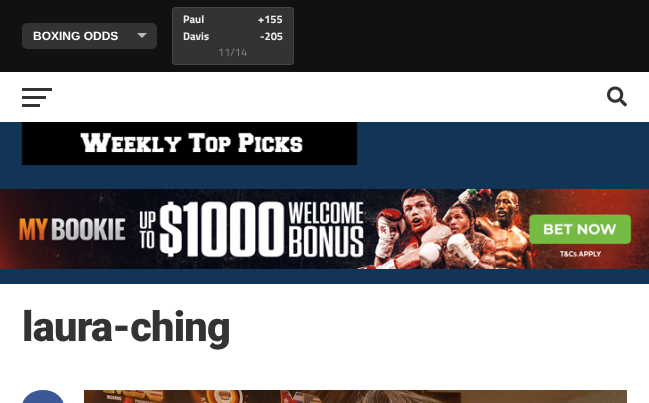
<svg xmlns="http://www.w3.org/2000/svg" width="649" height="403">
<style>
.a{font:bold 12px Liberation Sans;fill:#fff}
.b{font:bold 11px Titillium Web;fill:#eee}
.c{font:11px Titillium Web;fill:#888}
.d{font:900 41.5px Roboto;letter-spacing:-0.75px;fill:#333}
</style>
<rect width="100%" height="100%" fill="#123456"/>
<path fill="#111" d="M0 0h649v72H0z"/>
<rect fill="#333" x="22" y="23" width="135" height="26" rx="5"/>
<path fill="#bbb" d="M137 33h10l-5 5z"/>
<rect fill="#333" stroke="#444" x="172.5" y="7.5" width="121" height="57" rx="2.5"/>
<path fill="#fff" d="M0 72h649v50H0z"/>
<path fill="#333" d="M22 88h30v3H22z"/>
<path fill="#333" d="M22 96h24v3H22z"/>
<path fill="#333" d="M22 104h18v3H22z"/>
<image href="1.png" x="21" y="122" width="337" height="44"/>
<image href="2.png" x="607" y="86" width="20" height="21"/>
<image href="3.png" x="0" y="189" width="649" height="80"/>
<path fill="#fff" d="M0 284h649v119H0z"/>
<rect fill="#3b5998" x="22" y="390" width="42" height="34" rx="21"/>
<image href="4.png" x="84" y="390" width="543" height="13"/>
<text class="a" x="33" y="40">BOXING ODDS</text>
<text class="b" x="183" y="23">Paul</text>
<text class="b" x="183" y="40">Davis</text>
<text class="b" x="258" y="23">+155</text>
<text class="b" x="260" y="40">-205</text>
<text class="c" x="218" y="56">11/14</text>
<text class="d" x="22" y="341">laura-ching</text>
</svg>
